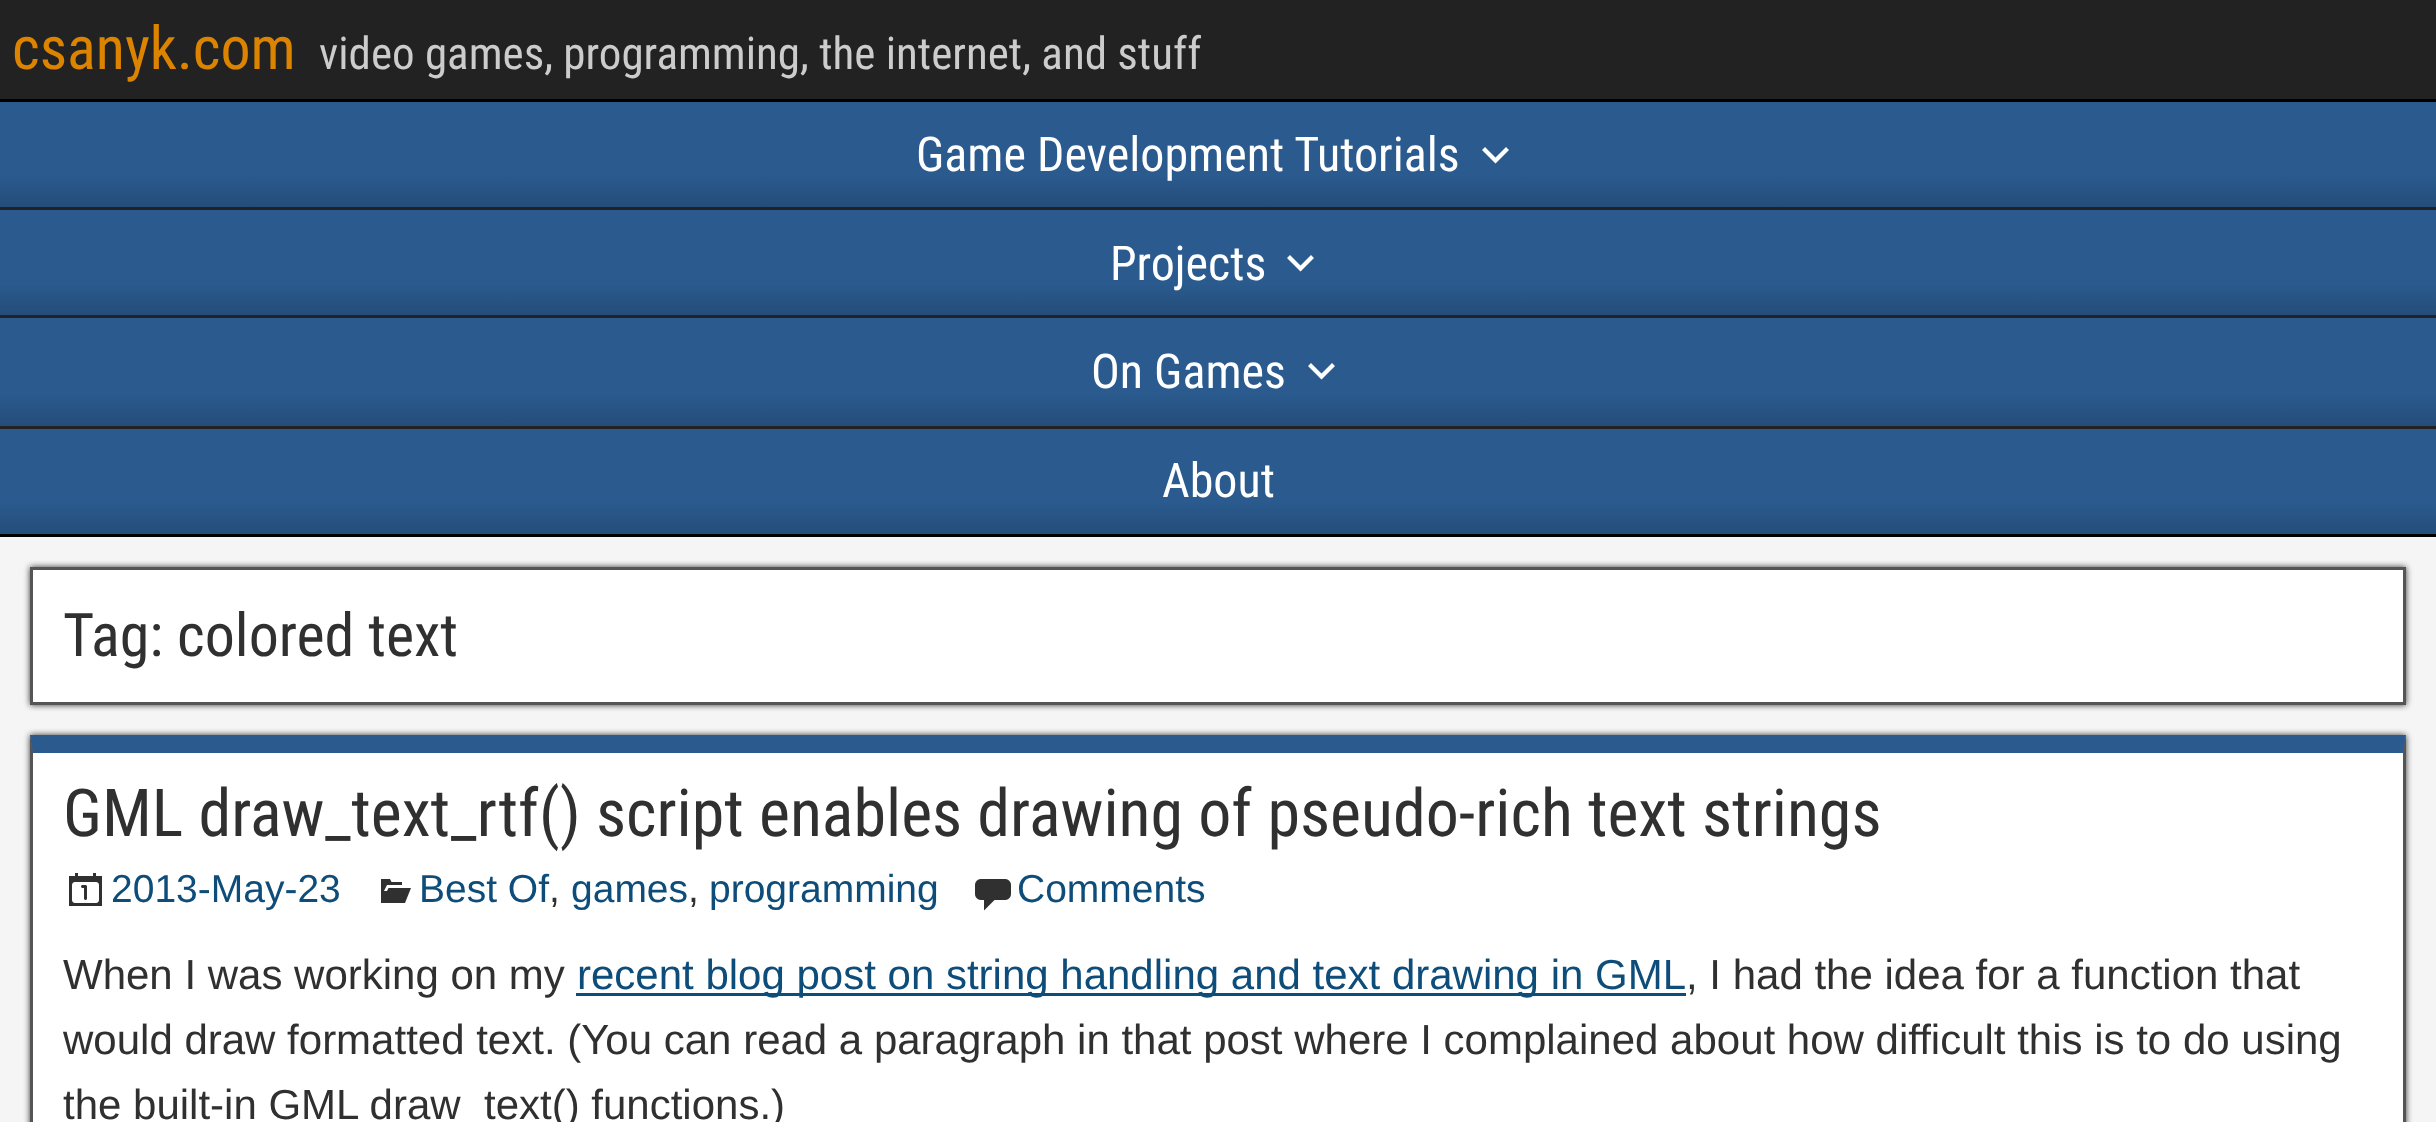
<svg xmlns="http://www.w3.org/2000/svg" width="2436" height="1122">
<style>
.a{font:60px Roboto Condensed;fill:#dc8300}
.b{font:45px Roboto Condensed;fill:#ccc}
.c{font:48px Roboto Condensed;fill:#fff}
.d{font:60px Roboto Condensed;fill:#303030}
.e{font:66px Roboto Condensed;fill:#303030}
.f{font:39px Liberation Sans;fill:#0e4d7a}
.g{font:39px Liberation Sans;fill:#303030}
.h{font:42px Arimo;fill:#303030}
.i{font:42px Arimo;fill:#0e4d7a}
</style>
<defs>
<linearGradient id="g1" gradientUnits="userSpaceOnUse" x1="1218" y1="102" x2="1218" y2="207"><stop offset="0.7" stop-color="#2a5a8e"/><stop offset="1" stop-color="#244d79"/></linearGradient>
<linearGradient id="g2" gradientUnits="userSpaceOnUse" x1="1218" y1="210" x2="1218" y2="315"><stop offset="0.7" stop-color="#2a5a8e"/><stop offset="1" stop-color="#244d79"/></linearGradient>
<linearGradient id="g3" gradientUnits="userSpaceOnUse" x1="1218" y1="318" x2="1218" y2="426"><stop offset="0.7" stop-color="#2a5a8e"/><stop offset="1" stop-color="#244d79"/></linearGradient>
<linearGradient id="g4" gradientUnits="userSpaceOnUse" x1="1218" y1="429" x2="1218" y2="534"><stop offset="0.7" stop-color="#2a5a8e"/><stop offset="1" stop-color="#244d79"/></linearGradient>
</defs>
<rect width="100%" height="100%" fill="#222"/>
<path fill="#000" d="M0 99h2436v3H0z"/>
<path fill="#000" d="M0 534h2436v3H0z"/>
<path fill="url(#g1)" d="M0 102h2436v105H0z"/>
<path fill="#fff" d="M1506 147l3 3l-13.5 13.5l-13.5-13.5l3-3l10.5 10.5z"/>
<path fill="url(#g2)" d="M0 210h2436v105H0z"/>
<path fill="#fff" d="M1311 255l3 3l-13.5 13.5l-13.5-13.5l3-3l10.5 10.5z"/>
<path fill="url(#g3)" d="M0 318h2436v108H0z"/>
<path fill="#fff" d="M1332 363l3 3l-13.5 13.5l-13.5-13.5l3-3l10.5 10.5z"/>
<path fill="url(#g4)" d="M0 429h2436v105H0z"/>
<path fill="#f5f5f5" d="M0 537h2436v585H0z"/>
<path fill="#333" filter="blur(3px)" d="M30 567h2376v138H30z"/>
<path fill="#fff" stroke="#555" stroke-width="3" d="M31.5 568.5h2373v135H31.5z"/>
<path fill="#333" filter="blur(3px)" d="M30 735h2376v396H30z"/>
<path fill="#fff" d="M33 753h2370v369H33z"/>
<path fill="#2a5a8e" d="M30 735h2376l-3 18h-2370z"/>
<path fill="#555" d="M2406 735v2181l-3-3v-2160z"/>
<path fill="#555" d="M30 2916v-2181l3 18v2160z"/>
<image href="1.png" x="69" y="873" width="33" height="33"/>
<image href="2.png" x="381" y="879" width="30" height="24"/>
<image href="3.png" x="975" y="879" width="36" height="32"/>
<path fill="#0e4d7a" d="M576 993h1110v3H576z"/>
<text class="a" x="12" y="69">csanyk.com</text>
<text class="b" x="319" y="69">video games, programming, the internet, and stuff</text>
<text class="c" x="916" y="171">Game Development Tutorials</text>
<text class="c" x="1110" y="280">Projects</text>
<text class="c" x="1091" y="388">On Games</text>
<text class="c" x="1162" y="497">About</text>
<text class="d" x="63" y="656">Tag: colored text</text>
<text class="e" x="63" y="836">GML draw_text_rtf() script enables drawing of pseudo-rich text strings</text>
<text class="f" x="111" y="902">2013-May-23</text>
<text class="f" x="419" y="902">Best Of</text>
<text class="g" x="549" y="902">,</text>
<text class="f" x="571" y="902">games</text>
<text class="g" x="688" y="902">,</text>
<text class="f" x="709" y="902">programming</text>
<text class="f" x="1017" y="902">Comments</text>
<text class="h" x="63" y="989">When I was working on my</text>
<text class="i" x="577" y="989">recent blog post on string handling and text drawing in GML</text>
<text class="h" x="1686" y="989">, I had the idea for a function that</text>
<text class="h" x="63" y="1054">would draw formatted text. (You can read a paragraph in that post where I complained about how difficult this is to do using</text>
<text class="h" x="63" y="1119">the built-in GML draw_text() functions.)</text>
</svg>
